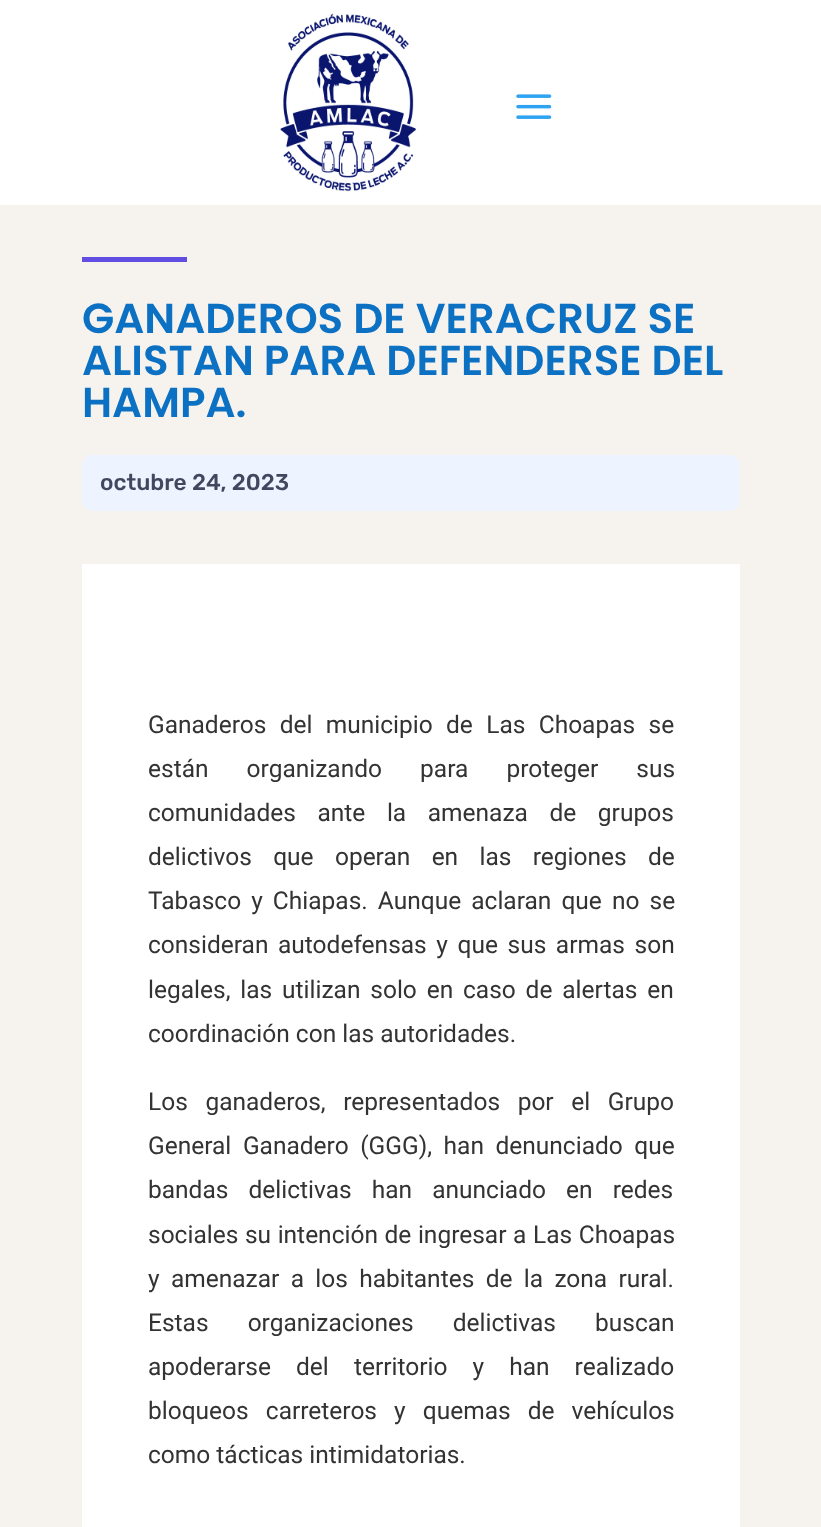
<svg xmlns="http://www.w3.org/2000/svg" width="821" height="1527">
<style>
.a{font:600 42px Poppins;fill:#0c71c3}
.b{font:300 22.75px Rubik;fill:#44465f}
.c{font:24.5px Roboto;fill:#333}
</style>
<rect width="100%" height="100%" fill="#fff"/>
<image href="1.png" x="280" y="13" width="137" height="179"/>
<image href="2.png" x="516" y="94" width="36" height="25"/>
<path fill="#f6f3ef" d="M0 205h821v1322H0z"/>
<path fill="#624de3" d="M82 257h105v5H82z"/>
<rect fill="#edf3ff" x="82" y="455" width="658" height="56" rx="11"/>
<path fill="#fff" d="M82 564h658v963H82z"/>
<text class="a" x="82" y="333">GANADEROS DE VERACRUZ SE</text>
<text class="a" x="82" y="375">ALISTAN PARA DEFENDERSE DEL</text>
<text class="a" x="82" y="417">HAMPA.</text>
<text class="b" x="100" y="490">octubre 24, 2023</text>
<text class="c" x="148" y="733" word-spacing="7.25">Ganaderos del municipio de Las Choapas se</text>
<text class="c" x="148" y="777" word-spacing="32">están organizando para proteger sus</text>
<text class="c" x="148" y="821" word-spacing="15.5">comunidades ante la amenaza de grupos</text>
<text class="c" x="148" y="865" word-spacing="15.25">delictivos que operan en las regiones de</text>
<text class="c" x="148" y="909" word-spacing="4">Tabasco y Chiapas. Aunque aclaran que no se</text>
<text class="c" x="148" y="953" word-spacing="3.5">consideran autodefensas y que sus armas son</text>
<text class="c" x="148" y="998" word-spacing="3.75">legales, las utilizan solo en caso de alertas en</text>
<text class="c" x="148" y="1042">coordinación con las autoridades.</text>
<text class="c" x="148" y="1110" word-spacing="11.5">Los ganaderos, representados por el Grupo</text>
<text class="c" x="148" y="1154" word-spacing="5.5">General Ganadero (GGG), han denunciado que</text>
<text class="c" x="148" y="1198" word-spacing="14">bandas delictivas han anunciado en redes</text>
<text class="c" x="148" y="1243" word-spacing="0.5">sociales su intención de ingresar a Las Choapas</text>
<text class="c" x="148" y="1287" word-spacing="5.25">y amenazar a los habitantes de la zona rural.</text>
<text class="c" x="148" y="1331" word-spacing="33">Estas organizaciones delictivas buscan</text>
<text class="c" x="148" y="1375" word-spacing="19">apoderarse del territorio y han realizado</text>
<text class="c" x="148" y="1419" word-spacing="11">bloqueos carreteros y quemas de vehículos</text>
<text class="c" x="148" y="1463">como tácticas intimidatorias.</text>
</svg>
